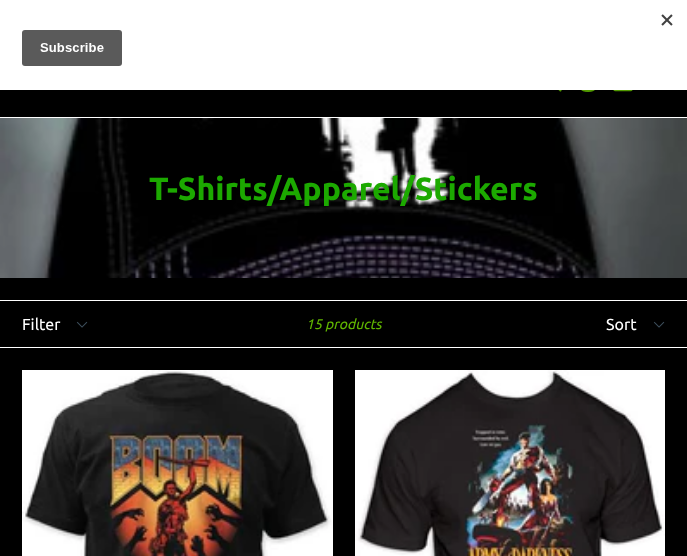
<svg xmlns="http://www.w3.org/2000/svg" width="687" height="556">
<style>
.a{font:bold 32px Ubuntu;fill:#1ca900}
.b{font:16px Ubuntu;fill:#fff}
.c{font:italic 14px Ubuntu;fill:#60b500}
</style>
<rect width="100%" height="100%" fill="#000"/>
<image href="2.png" x="558" y="90" width="4" height="2"/>
<image href="3.png" x="581" y="90" width="14" height="2"/>
<image href="4.png" x="613" y="90" width="20" height="2"/>
<path fill="#00000033" filter="blur(3px)" d="M0 3h687v90H0z"/>
<path fill="#fff" d="M0 0h687v90H0z"/>
<image href="1.png" x="22" y="14" width="651" height="52"/>
<path fill="#fff" d="M0 117h687v1H0z"/>
<image href="5.png" x="0" y="118" width="687" height="160"/>
<path fill="#fff" d="M0 300h687v1H0z"/>
<path fill="#fff" d="M0 347h687v1H0z"/>
<image href="6.png" x="76" y="321" width="12" height="7"/>
<image href="6.png" x="653" y="321" width="12" height="7"/>
<image href="7.png" x="22" y="370" width="311" height="186"/>
<image href="8.png" x="355" y="370" width="310" height="186"/>
<text class="a" x="149" y="200">T-Shirts/Apparel/Stickers</text>
<text class="b" x="22" y="330">Filter</text>
<text class="c" x="306" y="329">15 products</text>
<text class="b" x="606" y="330">Sort</text>
</svg>
